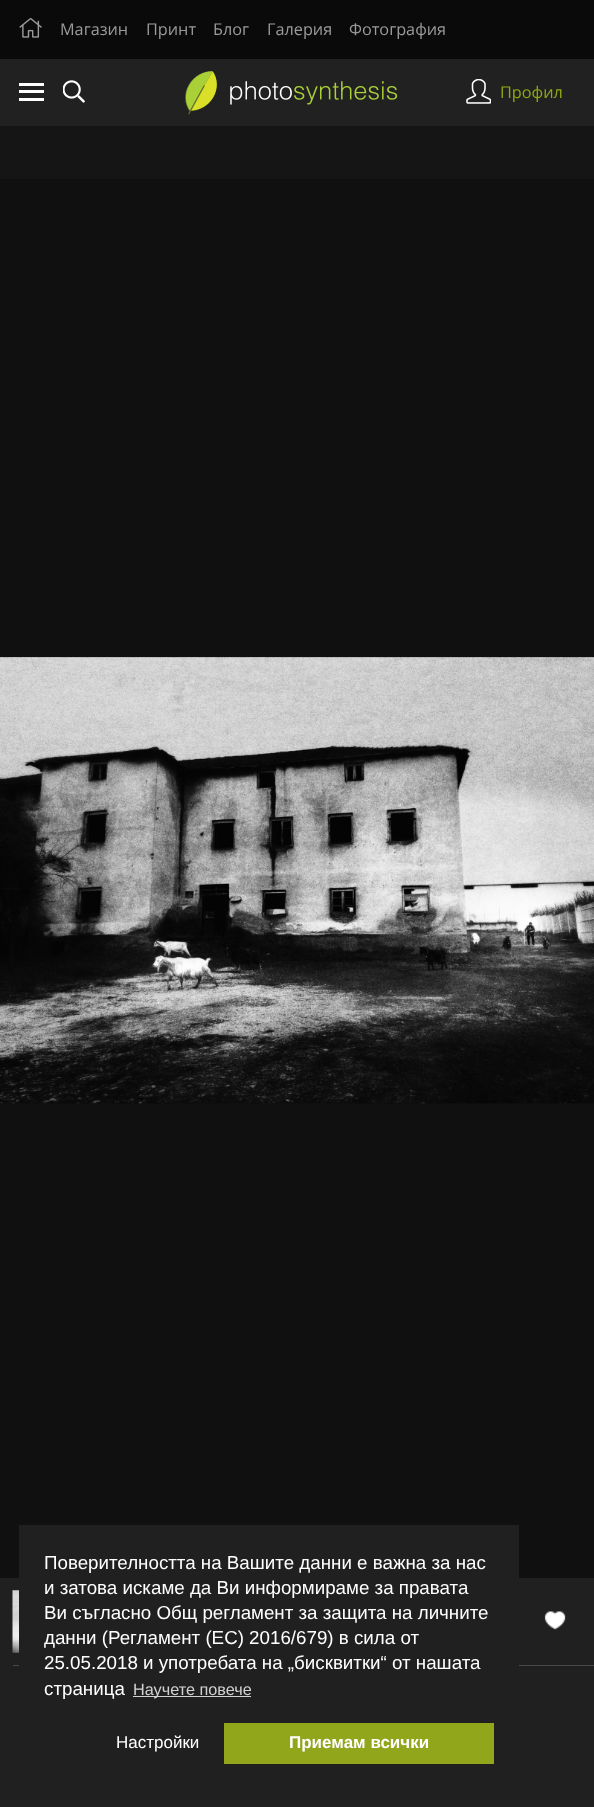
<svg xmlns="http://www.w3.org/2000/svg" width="594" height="1807">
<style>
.a{font:16.25px Open Sans;fill:#9b9b9b}
.b{font:16.25px Open Sans;fill:#92a812}
.c{font:18.75px Liberation Sans;fill:#fff}
.d{font:16.25px Liberation Sans;fill:#d2d2d2}
.e{font:17px Liberation Sans;fill:#fff}
.f{font:bold 17px Liberation Sans;fill:#fff}
</style>
<rect width="100%" height="100%" fill="#151515"/>
<path fill="#0a0a0a" d="M0 0h594v59H0z"/>
<image href="1.png" x="19" y="18" width="23" height="20"/>
<path fill="#212121" d="M0 59h594v67H0z"/>
<image href="2.png" x="466" y="79" width="25" height="25"/>
<path fill="#fff" d="M19 83h25v3H19z"/>
<path fill="#fff" d="M19 90h25v3H19z"/>
<path fill="#fff" d="M19 98h25v3H19z"/>
<image href="3.png" x="63" y="80" width="22" height="23"/>
<image href="4.png" x="185" y="71" width="213" height="44"/>
<path fill="#101010" d="M0 179h594v1399H0z"/>
<image href="5.png" x="0" y="657" width="594" height="447"/>
<path fill="#202020" d="M0 1578h594v229H0z"/>
<image href="6.png" x="12" y="1590" width="7" height="63"/>
<image href="7.png" x="544" y="1611" width="22" height="19"/>
<path fill="#484848" d="M13 1665h581v1H13z"/>
<path fill="#202020" d="M19 1525h500v141H19z"/>
<path fill="#d2d2d2" d="M133 1696h118v1H133z"/>
<path fill="#91a61a" d="M224 1723h270v41H224z"/>
<text class="a" x="60" y="35">Магазин</text>
<text class="a" x="146" y="35">Принт</text>
<text class="a" x="213" y="35">Блог</text>
<text class="a" x="267" y="35">Галерия</text>
<text class="a" x="349" y="35">Фотография</text>
<text class="b" x="500" y="98">Профил</text>
<text class="c" x="44" y="1569">Поверителността на Вашите данни е важна за нас</text>
<text class="c" x="44" y="1594">и затова искаме да Ви информираме за правата</text>
<text class="c" x="44" y="1619">Ви съгласно Общ регламент за защита на личните</text>
<text class="c" x="44" y="1644">данни (Регламент (ЕС) 2016/679) в сила от</text>
<text class="c" x="44" y="1669">25.05.2018 и употребата на „бисквитки“ от нашата</text>
<text class="c" x="44" y="1695">страница</text>
<text class="d" x="133" y="1695">Научете повече</text>
<text class="e" x="116" y="1748">Настройки</text>
<text class="f" x="289" y="1748">Приемам всички</text>
</svg>
